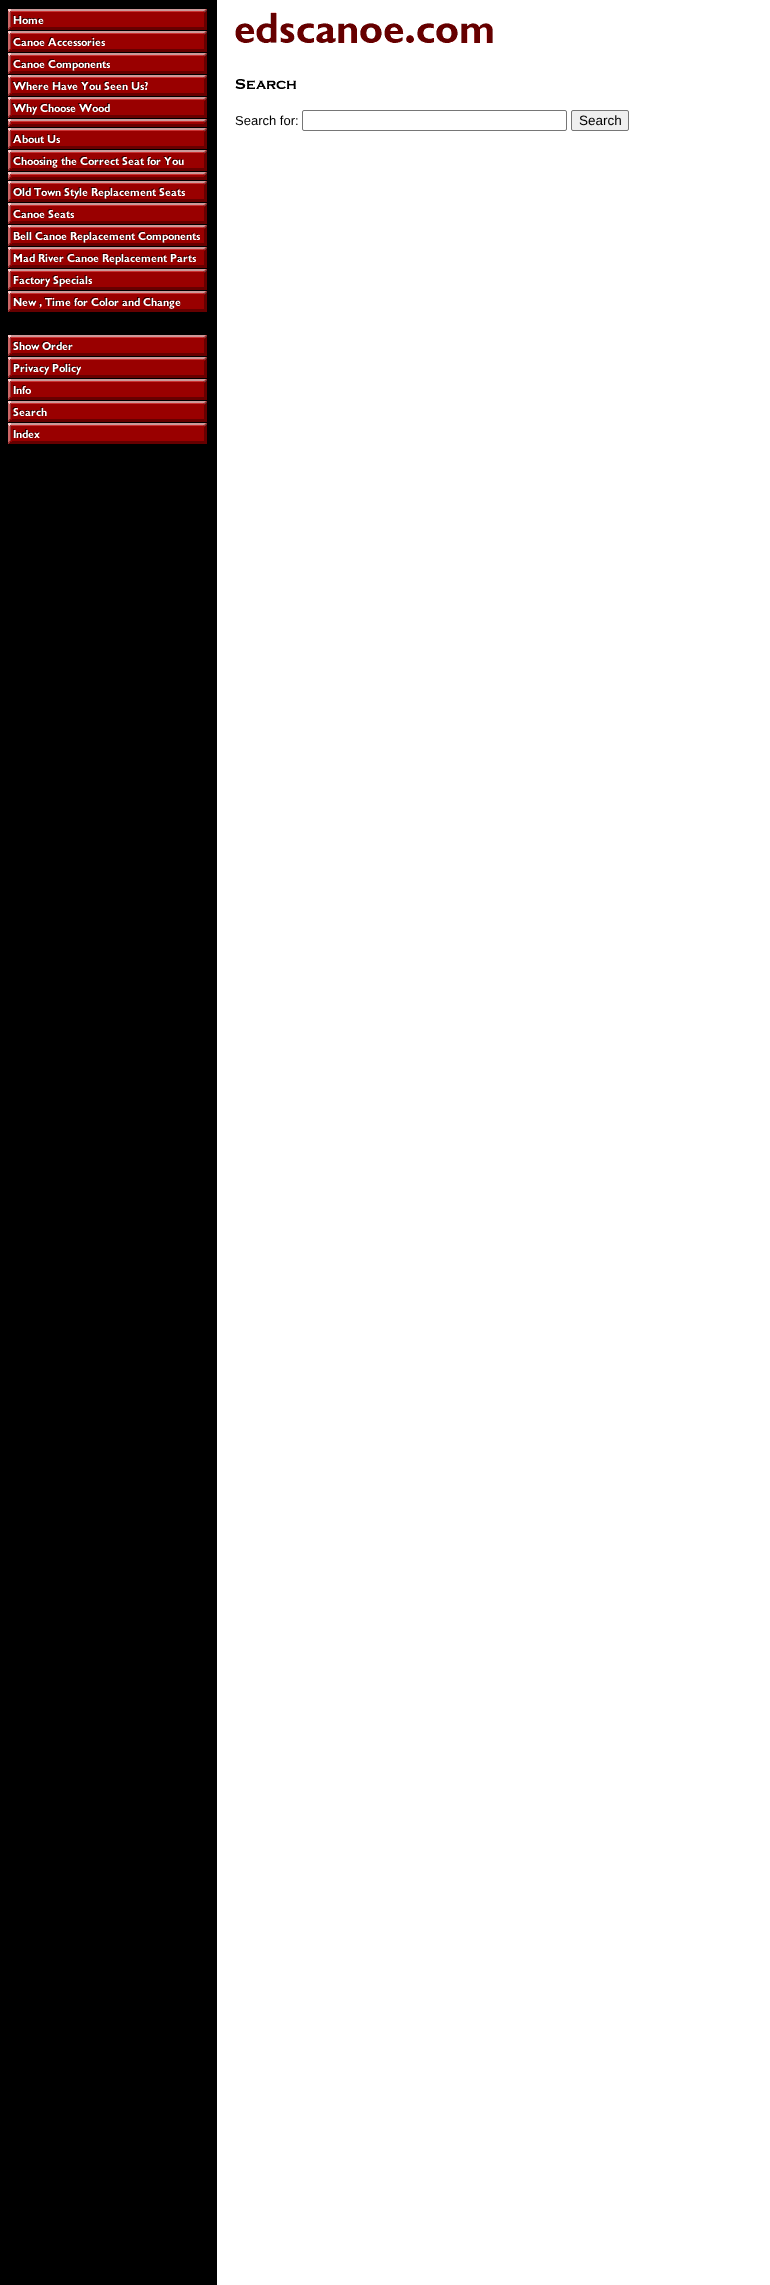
<svg xmlns="http://www.w3.org/2000/svg" width="770" height="2285">
<style>
.a{font:13px Liberation Sans;fill:#000}
.b{font:13.5px Liberation Sans;fill:#000}
</style>
<rect width="100%" height="100%" fill="#fff"/>
<path fill="#000" d="M0 0h217v2285H0z"/>
<image href="1.png" x="8" y="9" width="199" height="435"/>
<image href="2.png" x="235" y="12" width="258" height="31"/>
<image href="3.png" x="235" y="79" width="61" height="10"/>
<rect fill="none" stroke="#767676" x="302.5" y="110.5" width="264" height="20" rx="1.5"/>
<rect fill="#efefef" stroke="#767676" x="571.5" y="110.5" width="57" height="20" rx="1.5"/>
<text class="a" x="235" y="125">Search for:</text>
<text class="b" x="579" y="125">Search</text>
</svg>
